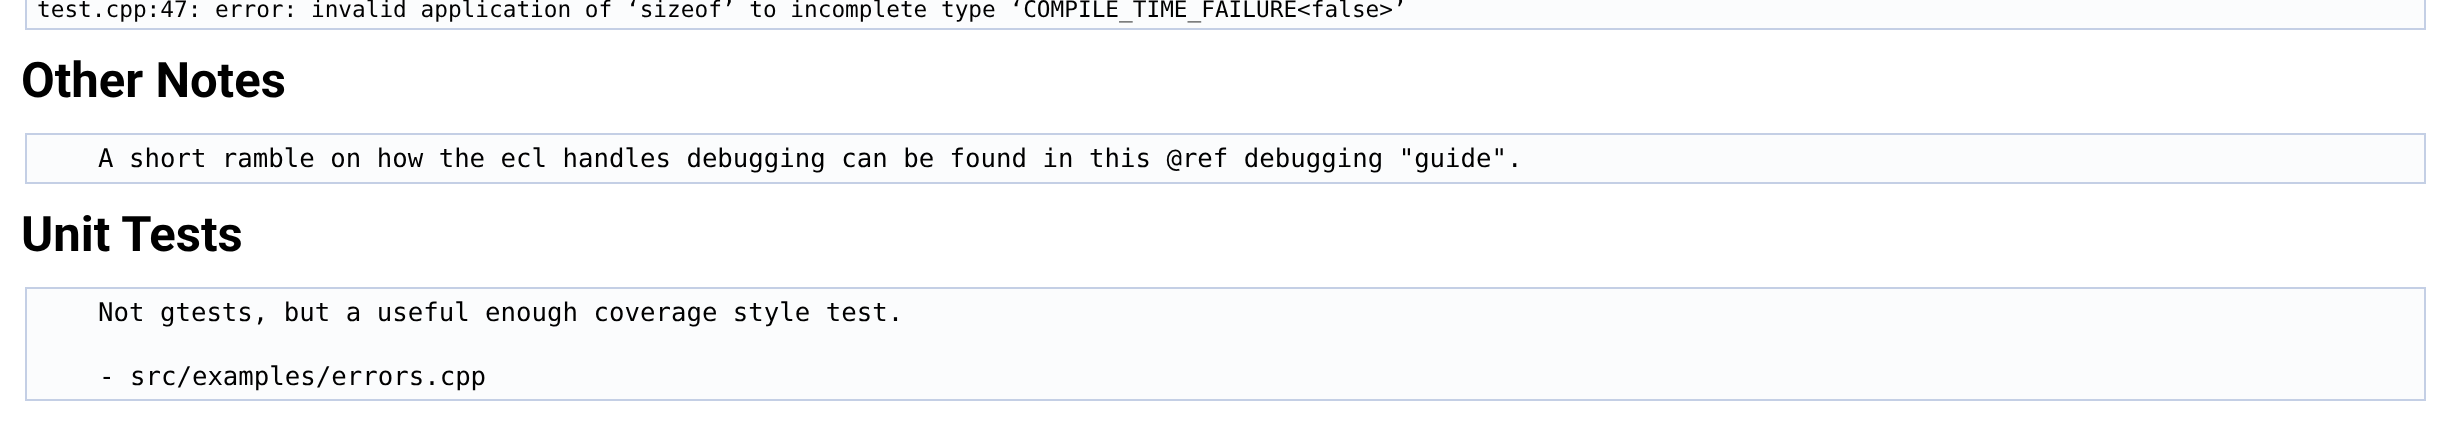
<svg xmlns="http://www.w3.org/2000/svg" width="2453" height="434">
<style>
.a{font:22.75px DejaVu Sans Mono;fill:#000}
.b{font:bold 49px Roboto;fill:#000}
.c{font:25.72px DejaVu Sans Mono;fill:#000}
</style>
<rect width="100%" height="100%" fill="#fff"/>
<path fill="#fbfcfd" stroke="#c4cfe5" stroke-width="2" d="M26 -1h2399v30H26z"/>
<path fill="#fbfcfd" stroke="#c4cfe5" stroke-width="2" d="M26 134h2399v49H26z"/>
<path fill="#fbfcfd" stroke="#c4cfe5" stroke-width="2" d="M26 288h2399v112H26z"/>
<text class="a" x="37" y="17">test.cpp:47: error: invalid application of ‘sizeof’ to incomplete type ‘COMPILE_TIME_FAILURE&lt;false&gt;’</text>
<text class="b" x="21" y="97">Other Notes</text>
<text class="c" x="98" y="167">A short ramble on how the ecl handles debugging can be found in this @ref debugging "guide".</text>
<text class="b" x="21" y="251">Unit Tests</text>
<text class="c" x="98" y="321">Not gtests, but a useful enough coverage style test.</text>
<text class="c" x="99" y="385">- src/examples/errors.cpp</text>
</svg>
